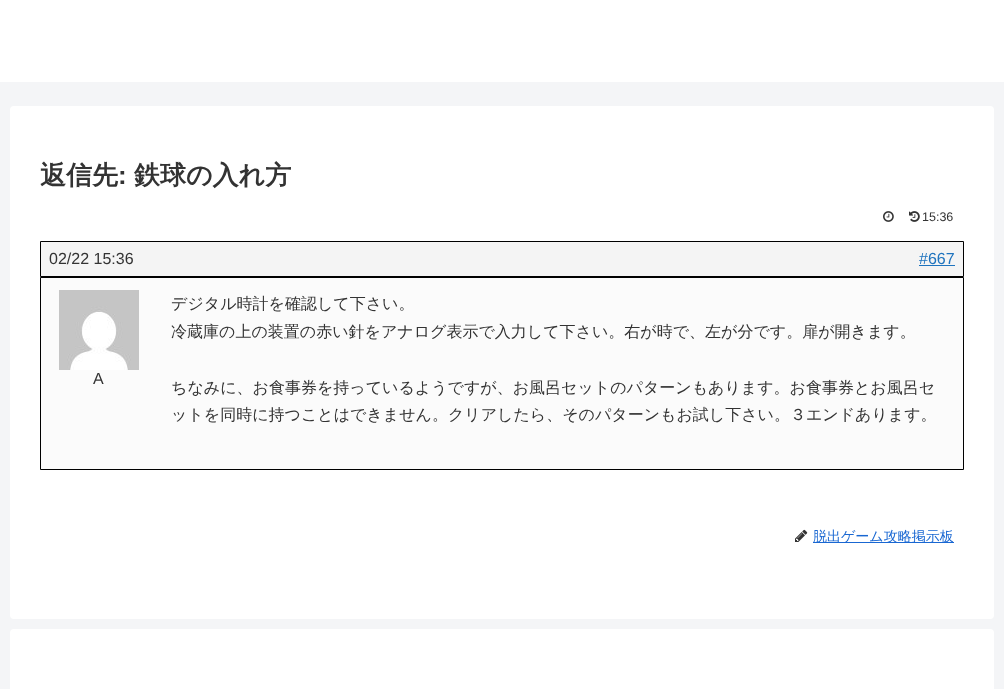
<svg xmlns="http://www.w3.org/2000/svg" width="1004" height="689">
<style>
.a{font:bold 26px WenQuanYi Zen Hei;fill:#333}
.b{font:bold 26px Liberation Sans;fill:#333}
.c{font:12.5px Liberation Sans;fill:#333}
.d{font:16px Liberation Sans;fill:#333}
.e{font:16px Liberation Sans;fill:#1e73be}
.f{font:500 16px WenQuanYi Zen Hei;fill:#333}
.g{font:500 14px WenQuanYi Zen Hei;fill:#1967d2}
</style>
<rect width="100%" height="100%" fill="#f4f5f7"/>
<path fill="#fff" d="M0 0h1004v82H0z"/>
<rect fill="#fff" x="10" y="106" width="984" height="513" rx="4"/>
<image href="1.png" x="883" y="211" width="11" height="11"/>
<image href="2.png" x="909" y="211" width="11" height="11"/>
<path fill="#f4f4f4" stroke="#000" d="M40.5 241.5h923v35H40.5z"/>
<path fill="#1e73be" d="M919 265h36v1H919z"/>
<path fill="#fbfbfb" stroke="#000" d="M40.5 277.5h923v192H40.5z"/>
<image href="3.png" x="59" y="290" width="80" height="80"/>
<image href="4.png" x="795" y="529" width="13" height="13"/>
<path fill="#1967d2" d="M813 542h141v1H813z"/>
<rect fill="#fff" x="10" y="629" width="984" height="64" rx="4"/>
<text class="a" x="40" y="184">返信先</text>
<text class="b" x="118" y="184">:</text>
<text class="a" x="134" y="184">鉄球の入れ方</text>
<text class="c" x="922" y="221">15:36</text>
<text class="d" x="49" y="264">02/22 15:36</text>
<text class="e" x="919" y="264">#667</text>
<text class="d" x="93" y="384">A</text>
<text class="f" x="171" y="309">デジタル時計を確認して下さい。</text>
<text class="f" x="171" y="337">冷蔵庫の上の装置の赤い針をアナログ表示で入力して下さい。右が時で、左が分です。扉が開きます。</text>
<text class="f" x="171" y="393">ちなみに、お食事券を持っているようですが、お風呂セットのパターンもあります。お食事券とお風呂セ</text>
<text class="f" x="171" y="420">ットを同時に持つことはできません。クリアしたら、そのパターンもお試し下さい。３エンドあります。</text>
<text class="g" x="813" y="541">脱出ゲーム攻略掲示板</text>
</svg>
